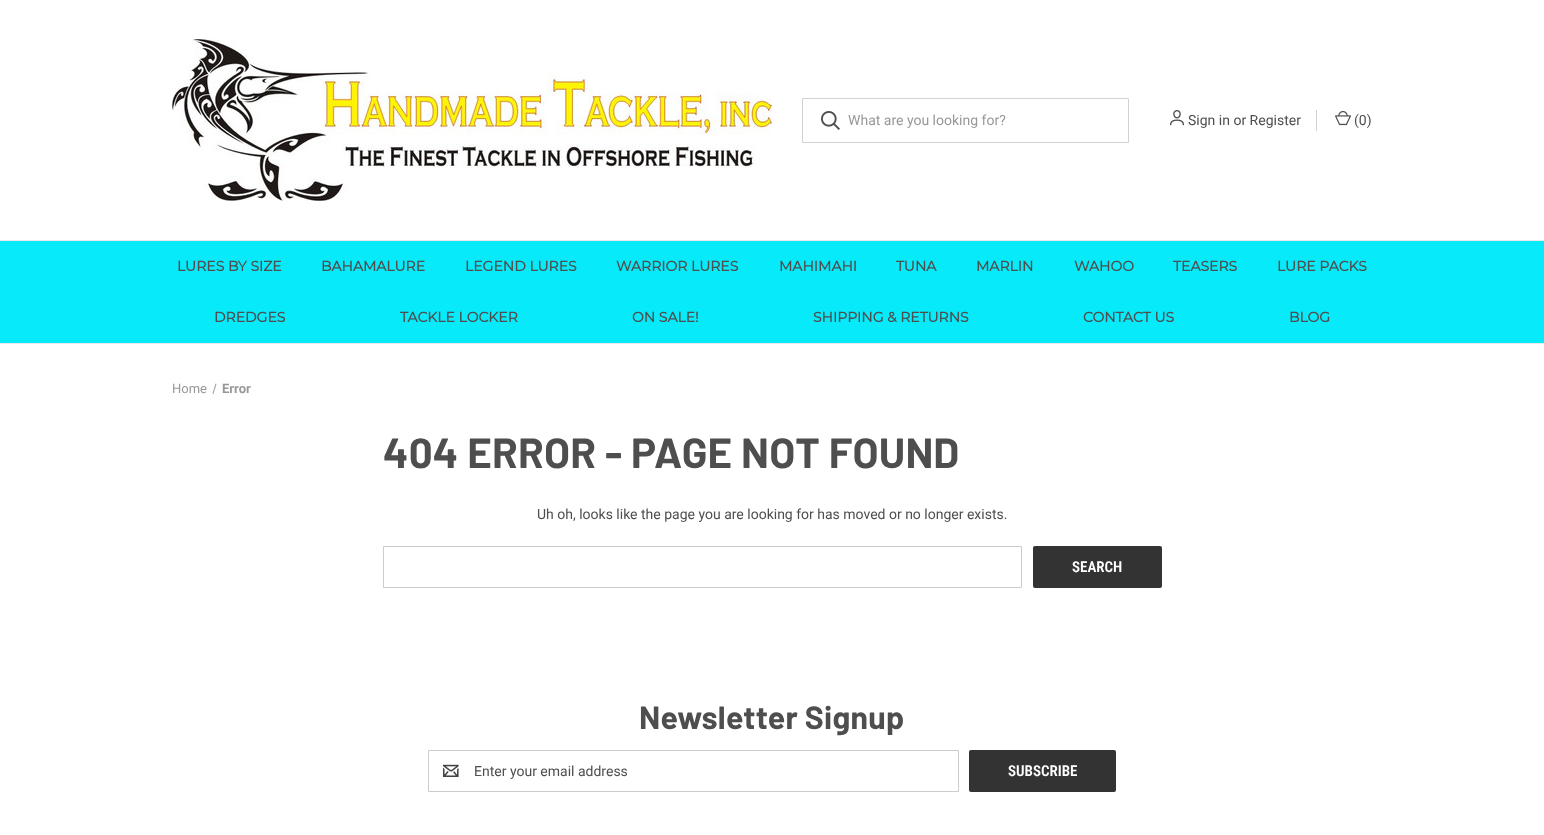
<svg xmlns="http://www.w3.org/2000/svg" width="1544" height="835">
<style>
.a{font:14px Roboto;fill:#989898}
.b{font:14px Roboto;fill:#4e4e4e}
.c{font:bold 14px Montserrat;fill:#4e4e4e}
.d{font:13px Roboto;fill:#989898}
.e{font:bold 13px Roboto;fill:#989898}
.f{font:bold 42px Barlow;letter-spacing:0.25px;fill:#4e4e4e}
.g{font:600 15px Roboto Condensed;fill:#fff}
.h{font:bold 32px Barlow;letter-spacing:0.25px;fill:#4e4e4e}
</style>
<rect width="100%" height="100%" fill="#fff"/>
<image href="1.png" x="172" y="39" width="600" height="162"/>
<path fill="none" stroke="#d2d2d2" d="M802.5 98.5h326v44H802.5z"/>
<image href="2.png" x="821" y="111" width="19" height="19"/>
<image href="3.png" x="1170" y="110" width="14" height="16"/>
<path fill="#d2d2d2" d="M1316 110h1v21H1316z"/>
<image href="4.png" x="1335" y="111" width="16" height="15"/>
<path fill="#07eafa" d="M0 241h1544v102H0z"/>
<path fill="#ebebeb" d="M0 240h1544v1H0z"/>
<path fill="#ebebeb" d="M0 343h1544v1H0z"/>
<path fill="#a3a3a3" d="M215.5 383.5l1 .5l-3 10l-1-.5z"/>
<path fill="none" stroke="#ccc" d="M383.5 546.5h638v41H383.5z"/>
<rect fill="#333" x="1033" y="546" width="129" height="42" rx="2"/>
<path fill="none" stroke="#ccc" d="M428.5 750.5h530v41H428.5z"/>
<image href="5.png" x="443" y="764" width="16" height="13"/>
<rect fill="#333" x="969" y="750" width="147" height="42" rx="2"/>
<text class="a" x="848" y="125">What are you looking for?</text>
<text class="b" x="1188" y="125">Sign in or Register</text>
<text class="b" x="1354" y="125">(0)</text>
<text class="c" x="177" y="271">LURES BY SIZE</text>
<text class="c" x="321" y="271">BAHAMALURE</text>
<text class="c" x="465" y="271">LEGEND LURES</text>
<text class="c" x="616" y="271">WARRIOR LURES</text>
<text class="c" x="779" y="271">MAHIMAHI</text>
<text class="c" x="896" y="271">TUNA</text>
<text class="c" x="976" y="271">MARLIN</text>
<text class="c" x="1074" y="271">WAHOO</text>
<text class="c" x="1173" y="271">TEASERS</text>
<text class="c" x="1277" y="271">LURE PACKS</text>
<text class="c" x="214" y="322">DREDGES</text>
<text class="c" x="400" y="322">TACKLE LOCKER</text>
<text class="c" x="632" y="322">ON SALE!</text>
<text class="c" x="813" y="322">SHIPPING &amp; RETURNS</text>
<text class="c" x="1083" y="322">CONTACT US</text>
<text class="c" x="1289" y="322">BLOG</text>
<text class="d" x="172" y="393">Home</text>
<text class="e" x="222" y="393">Error</text>
<text class="f" x="383" y="468">404 ERROR - PAGE NOT FOUND</text>
<text class="b" x="537" y="519">Uh oh, looks like the page you are looking for has moved or no longer exists.</text>
<text class="g" x="1072" y="572">SEARCH</text>
<text class="h" x="639" y="729">Newsletter Signup</text>
<text class="b" x="474" y="776">Enter your email address</text>
<text class="g" x="1008" y="776">SUBSCRIBE</text>
</svg>
